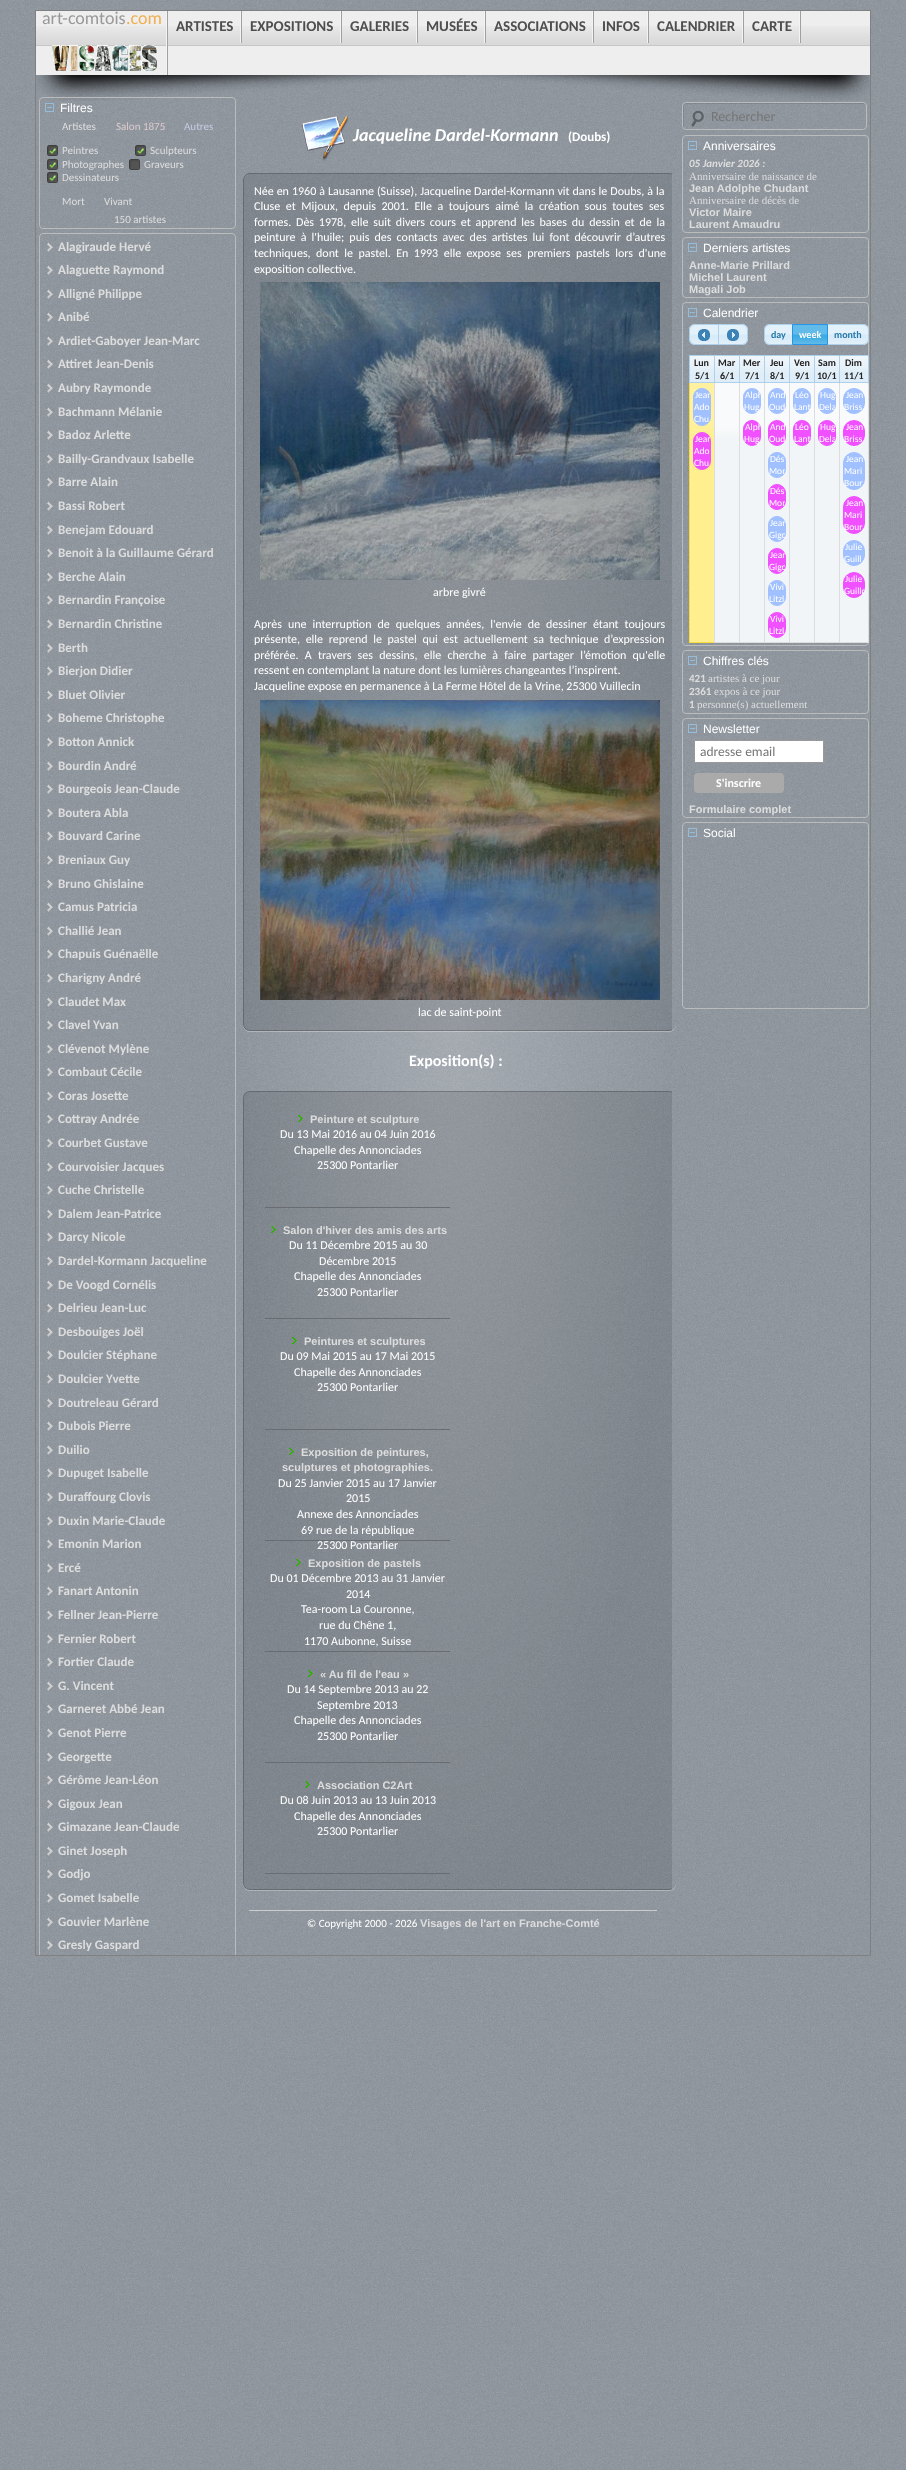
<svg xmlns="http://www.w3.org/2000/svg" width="906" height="2470">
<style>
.a{font:18px Carlito;fill:#999}
.b{font:18px Carlito;fill:#f0af50}
.c{font:bold 15px Carlito;fill:#4e4e4e}
.d{font:12px Liberation Sans;fill:#fff}
.e{font:11px Carlito;fill:#ddd}
.f{font:11px Carlito;fill:#ddcbcd}
.g{font:11px Carlito;fill:#c5cbe2}
.h{font:bold 13px Carlito;fill:#ddd}
.i{font:italic bold 18px Carlito;fill:#fff}
.j{font:bold 13px Carlito;fill:#fff}
.k{font:12px Carlito;fill:#fff}
.l{font:bold 16px Carlito;fill:#fff}
.m{font:bold 11px Liberation Sans;fill:#ddd}
.n{font:14px Carlito;fill:#757575}
.o{font:italic bold 11px Carlito;fill:#ddd}
.p{font:11px Liberation Serif;fill:#ddd}
.q{font:bold 10px Carlito;fill:#2779aa}
.r{font:bold 10px Carlito;fill:#fff}
.s{font:bold 10px Carlito;fill:#222}
.t{font:9.5px Carlito;fill:#fff}
.u{font:bold 11px Carlito;fill:#ddd}
.v{font:13.5px Carlito;fill:#757575}
.w{font:bold 12px Carlito;fill:#fff}
.x{font:11px Carlito;fill:#fff}
</style>
<defs>
<clipPath id="clip1"><path d="M36 11h834v1944H36z"/></clipPath>
<clipPath id="clip2"><path d="M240 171h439v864h-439zm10 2h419c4 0 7 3 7 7v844c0 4-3 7-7 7h-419c-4 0-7-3-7-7v-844c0-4 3-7 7-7z" clip-rule="evenodd"/></clipPath>
<clipPath id="clip3"><path d="M239 97h433v1805H239z"/></clipPath>
<clipPath id="clip4"><path d="M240 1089h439v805h-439zm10 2h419c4 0 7 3 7 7v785c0 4-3 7-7 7h-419c-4 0-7-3-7-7v-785c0-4 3-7 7-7z" clip-rule="evenodd"/></clipPath>
<clipPath id="clip5"><path d="M694 389h16v36H694z"/></clipPath>
<clipPath id="clip6"><path d="M744 389h16v24H744z"/></clipPath>
<clipPath id="clip7"><path d="M819 389h16v24H819z"/></clipPath>
<clipPath id="clip8"><path d="M744 421h16v24H744z"/></clipPath>
<clipPath id="clip9"><path d="M819 421h16v24H819z"/></clipPath>
<clipPath id="clip10"><path d="M694 433h16v36H694z"/></clipPath>
<clipPath id="clip11"><path d="M769 453h16v24H769z"/></clipPath>
<clipPath id="clip12"><path d="M769 485h16v24H769z"/></clipPath>
<clipPath id="clip13"><path d="M769 517h16v24H769z"/></clipPath>
<clipPath id="clip14"><path d="M769 549h16v24H769z"/></clipPath>
<clipPath id="clip15"><path d="M844 573h20v24H844z"/></clipPath>
</defs>
<rect width="100%" height="100%" fill="#fff"/>
<image href="1.png" x="0" y="0" width="906" height="2470"/>
<path fill="none" stroke="#808080" d="M35.5 10.5h835v1945H35.5z"/>
<image href="2.png" x="36" y="75" width="430" height="26"/>
<image href="3.png" x="440" y="75" width="430" height="26"/>
<path fill="#eee" d="M36 11h834v64H36z"/>
<image href="4.png" x="36" y="26" width="834" height="20"/>
<image href="5.png" x="166" y="11" width="2" height="32"/>
<image href="5.png" x="240" y="11" width="2" height="32"/>
<image href="5.png" x="340" y="11" width="2" height="32"/>
<image href="5.png" x="416" y="11" width="2" height="32"/>
<image href="5.png" x="484" y="11" width="2" height="32"/>
<image href="5.png" x="592" y="11" width="2" height="32"/>
<image href="5.png" x="647" y="11" width="2" height="32"/>
<image href="5.png" x="742" y="11" width="2" height="32"/>
<image href="5.png" x="799" y="11" width="2" height="32"/>
<image href="5.png" x="166" y="43" width="2" height="32"/>
<image href="6.png" x="52" y="45" width="105" height="26"/>
<rect fill="none" stroke="#bbb" x="39.5" y="97.5" width="196" height="131" rx="3.5"/>
<image href="7.png" x="45" y="103" width="9" height="9"/>
<image href="8.png" x="47" y="145" width="11" height="11"/>
<image href="9.png" x="135" y="145" width="11" height="11"/>
<image href="10.png" x="47" y="159" width="11" height="11"/>
<image href="11.png" x="129" y="159" width="11" height="11"/>
<image href="12.png" x="47" y="172" width="11" height="11"/>
<g clip-path="url(#clip1)">
<rect fill="none" stroke="#bbb" x="39.5" y="233.5" width="196" height="1730" rx="3.5"/>
</g>
<image href="13.png" x="47" y="242" width="6" height="10"/>
<image href="14.png" x="47" y="265" width="6" height="10"/>
<image href="15.png" x="47" y="289" width="6" height="10"/>
<image href="16.png" x="47" y="312" width="6" height="10"/>
<image href="17.png" x="47" y="336" width="6" height="10"/>
<image href="18.png" x="47" y="359" width="6" height="10"/>
<image href="19.png" x="47" y="383" width="6" height="10"/>
<image href="20.png" x="47" y="407" width="6" height="10"/>
<image href="21.png" x="47" y="430" width="6" height="10"/>
<image href="22.png" x="47" y="454" width="6" height="10"/>
<image href="23.png" x="47" y="477" width="6" height="10"/>
<image href="24.png" x="47" y="501" width="6" height="10"/>
<image href="25.png" x="47" y="525" width="6" height="10"/>
<image href="26.png" x="47" y="548" width="6" height="10"/>
<image href="27.png" x="47" y="572" width="6" height="10"/>
<image href="28.png" x="47" y="595" width="6" height="10"/>
<image href="29.png" x="47" y="619" width="6" height="10"/>
<image href="30.png" x="47" y="643" width="6" height="10"/>
<image href="31.png" x="47" y="666" width="6" height="10"/>
<image href="32.png" x="47" y="690" width="6" height="10"/>
<image href="33.png" x="47" y="713" width="6" height="10"/>
<image href="34.png" x="47" y="737" width="6" height="10"/>
<image href="35.png" x="47" y="761" width="6" height="10"/>
<image href="36.png" x="47" y="784" width="6" height="10"/>
<image href="37.png" x="47" y="808" width="6" height="10"/>
<image href="38.png" x="47" y="831" width="6" height="10"/>
<image href="39.png" x="47" y="855" width="6" height="10"/>
<image href="40.png" x="47" y="879" width="6" height="10"/>
<image href="41.png" x="47" y="902" width="6" height="10"/>
<image href="42.png" x="47" y="926" width="6" height="10"/>
<image href="43.png" x="47" y="949" width="6" height="10"/>
<image href="44.png" x="47" y="973" width="6" height="10"/>
<image href="45.png" x="47" y="997" width="6" height="10"/>
<image href="46.png" x="47" y="1020" width="6" height="10"/>
<image href="47.png" x="47" y="1044" width="6" height="10"/>
<image href="48.png" x="47" y="1067" width="6" height="10"/>
<image href="49.png" x="47" y="1091" width="6" height="10"/>
<image href="50.png" x="47" y="1114" width="6" height="10"/>
<image href="51.png" x="47" y="1138" width="6" height="10"/>
<image href="52.png" x="47" y="1162" width="6" height="10"/>
<image href="53.png" x="47" y="1185" width="6" height="10"/>
<image href="54.png" x="47" y="1209" width="6" height="10"/>
<image href="55.png" x="47" y="1232" width="6" height="10"/>
<image href="56.png" x="47" y="1256" width="6" height="10"/>
<image href="57.png" x="47" y="1280" width="6" height="10"/>
<image href="58.png" x="47" y="1303" width="6" height="10"/>
<image href="59.png" x="47" y="1327" width="6" height="10"/>
<image href="60.png" x="47" y="1350" width="6" height="10"/>
<image href="61.png" x="47" y="1374" width="6" height="10"/>
<image href="62.png" x="47" y="1398" width="6" height="10"/>
<image href="63.png" x="47" y="1421" width="6" height="10"/>
<image href="64.png" x="47" y="1445" width="6" height="10"/>
<image href="65.png" x="47" y="1468" width="6" height="10"/>
<image href="66.png" x="47" y="1492" width="6" height="10"/>
<image href="67.png" x="47" y="1516" width="6" height="10"/>
<image href="68.png" x="47" y="1539" width="6" height="10"/>
<image href="69.png" x="47" y="1563" width="6" height="10"/>
<image href="70.png" x="47" y="1586" width="6" height="10"/>
<image href="71.png" x="47" y="1610" width="6" height="10"/>
<image href="72.png" x="47" y="1634" width="6" height="10"/>
<image href="73.png" x="47" y="1657" width="6" height="10"/>
<image href="74.png" x="47" y="1681" width="6" height="10"/>
<image href="75.png" x="47" y="1704" width="6" height="10"/>
<image href="76.png" x="47" y="1728" width="6" height="10"/>
<image href="77.png" x="47" y="1752" width="6" height="10"/>
<image href="78.png" x="47" y="1775" width="6" height="10"/>
<image href="79.png" x="47" y="1799" width="6" height="10"/>
<image href="80.png" x="47" y="1822" width="6" height="10"/>
<image href="81.png" x="47" y="1846" width="6" height="10"/>
<image href="82.png" x="47" y="1869" width="6" height="10"/>
<image href="83.png" x="47" y="1893" width="6" height="10"/>
<image href="84.png" x="47" y="1917" width="6" height="10"/>
<image href="85.png" x="47" y="1940" width="6" height="10"/>
<image href="86.png" x="302" y="116" width="47" height="45"/>
<g clip-path="url(#clip2)">
<rect fill="#ffffff4d" filter="blur(0.5px)" x="243" y="174" width="433" height="858" rx="7"/>
</g>
<g clip-path="url(#clip3)">
<rect fill="#0000001a" x="243" y="173" width="433" height="858" rx="7"/>
<rect fill="none" stroke="#00000033" x="243.5" y="173.5" width="432" height="857" rx="6.5"/>
</g>
<image href="87.png" x="260" y="282" width="400" height="298"/>
<image href="88.png" x="260" y="700" width="400" height="300"/>
<g clip-path="url(#clip4)">
<rect fill="#ffffff4d" filter="blur(0.5px)" x="243" y="1092" width="433" height="799" rx="7"/>
</g>
<g clip-path="url(#clip3)">
<rect fill="#0000001a" x="243" y="1091" width="433" height="799" rx="7"/>
<rect fill="none" stroke="#00000033" x="243.5" y="1091.5" width="432" height="798" rx="6.5"/>
</g>
<path fill="#696d72" d="M265 1207h185v1H265z"/>
<image href="89.png" x="298" y="1115" width="5" height="7"/>
<path fill="#696d72" d="M265 1318h185v1H265z"/>
<image href="90.png" x="271" y="1226" width="5" height="7"/>
<path fill="#696d72" d="M265 1429h185v1H265z"/>
<image href="91.png" x="292" y="1337" width="5" height="7"/>
<path fill="#696d72" d="M265 1540h185v1H265z"/>
<image href="92.png" x="289" y="1448" width="5" height="7"/>
<path fill="#696d72" d="M265 1651h185v1H265z"/>
<image href="93.png" x="296" y="1559" width="5" height="7"/>
<path fill="#696d72" d="M265 1762h185v1H265z"/>
<image href="94.png" x="308" y="1670" width="5" height="7"/>
<path fill="#696d72" d="M265 1873h185v1H265z"/>
<image href="95.png" x="305" y="1781" width="5" height="7"/>
<image href="96.png" x="691" y="110" width="13" height="17"/>
<path fill="#0000001a" d="M687 104h178c0-1-1-1-2-1h-177c-2 0-3 1-3 3v20c0 1 0 2 1 2v-18c0-2-1-6 3-6z"/>
<rect fill="none" stroke="#bbb" x="682.5" y="102.5" width="184" height="27" rx="3.5"/>
<rect fill="none" stroke="#bbb" x="682.5" y="135.5" width="186" height="97" rx="3.5"/>
<image href="97.png" x="688" y="141" width="9" height="9"/>
<rect fill="none" stroke="#bbb" x="682.5" y="237.5" width="186" height="60" rx="3.5"/>
<image href="98.png" x="688" y="243" width="9" height="9"/>
<rect fill="none" stroke="#bbb" x="682.5" y="302.5" width="186" height="343" rx="3.5"/>
<image href="99.png" x="688" y="308" width="9" height="9"/>
<image href="100.png" x="689" y="324" width="29" height="21"/>
<path fill="none" stroke="#aed0ea" d="M695 324.5h23.5v20h-23.5c-3 0-5.5-2.5-5.5-5.5v-9c0-3 2.5-5.5 5.5-5.5z"/>
<image href="101.png" x="698" y="329" width="12" height="12"/>
<image href="102.png" x="719" y="324" width="29" height="21"/>
<path fill="none" stroke="#aed0ea" d="M718.5 324.5h23.5c3 0 5.5 2.5 5.5 5.5v9c0 3-2.5 5.5-5.5 5.5h-23.5z"/>
<image href="103.png" x="727" y="329" width="12" height="12"/>
<image href="104.png" x="764" y="324" width="28" height="21"/>
<path fill="none" stroke="#aed0ea" d="M770 324.5h22.5v20h-22.5c-3 0-5.5-2.5-5.5-5.5v-9c0-3 2.5-5.5 5.5-5.5z"/>
<image href="105.png" x="793" y="325" width="34" height="19"/>
<image href="106.png" x="828" y="324" width="41" height="21"/>
<path fill="none" stroke="#aed0ea" d="M827.5 324.5h35.5c3 0 5.5 2.5 5.5 5.5v9c0 3-2.5 5.5-5.5 5.5h-35.5z"/>
<path fill="none" stroke="#2694e8" d="M792.5 324.5h35v20H792.5z"/>
<image href="107.png" x="690" y="356" width="24" height="26"/>
<path fill="#aed0ea" d="M689 355h150v1H689z"/>
<path fill="#aed0ea" d="M689 382h150v1H689z"/>
<path fill="#aed0ea" d="M689 355h1v28H689z"/>
<image href="107.png" x="715" y="356" width="24" height="26"/>
<path fill="#aed0ea" d="M714 355h1v28H714z"/>
<image href="107.png" x="740" y="356" width="24" height="26"/>
<path fill="#aed0ea" d="M739 355h1v28H739z"/>
<image href="107.png" x="765" y="356" width="24" height="26"/>
<path fill="#aed0ea" d="M764 355h1v28H764z"/>
<image href="107.png" x="790" y="356" width="24" height="26"/>
<path fill="#aed0ea" d="M789 355h1v28H789z"/>
<image href="107.png" x="815" y="356" width="24" height="26"/>
<path fill="#aed0ea" d="M814 355h1v28H814z"/>
<path fill="#deedf7" d="M840 371h28v11H840z"/>
<image href="108.png" x="840" y="356" width="28" height="15"/>
<path fill="none" stroke="#aed0ea" d="M839.5 355.5h29v27H839.5z"/>
<path fill="#ffef8f" d="M690 483h24v159H690z"/>
<image href="109.png" x="690" y="383" width="24" height="100"/>
<path fill="#f9dd34" d="M689 642h25v1H689z"/>
<path fill="#f9dd34" d="M689 383h1v260H689z"/>
<path fill="#f2f5f7" d="M715 483h24v159H715z"/>
<image href="110.png" x="715" y="383" width="24" height="100"/>
<path fill="#ddd" d="M714 642h125v1H714z"/>
<path fill="#ddd" d="M714 383h1v260H714z"/>
<path fill="#f2f5f7" d="M740 483h24v159H740z"/>
<image href="110.png" x="740" y="383" width="24" height="100"/>
<path fill="#ddd" d="M739 383h1v260H739z"/>
<path fill="#f2f5f7" d="M765 483h24v159H765z"/>
<image href="110.png" x="765" y="383" width="24" height="100"/>
<path fill="#ddd" d="M764 383h1v260H764z"/>
<path fill="#f2f5f7" d="M790 483h24v159H790z"/>
<image href="110.png" x="790" y="383" width="24" height="100"/>
<path fill="#ddd" d="M789 383h1v260H789z"/>
<path fill="#f2f5f7" d="M815 483h24v159H815z"/>
<image href="110.png" x="815" y="383" width="24" height="100"/>
<path fill="#ddd" d="M814 383h1v260H814z"/>
<path fill="#f2f5f7" d="M840 483h28v159H840z"/>
<image href="111.png" x="840" y="383" width="28" height="100"/>
<path fill="#ddd" d="M868 383h1v260H868z"/>
<path fill="#ddd" d="M839 642h30v1H839z"/>
<path fill="#ddd" d="M839 383h1v260H839z"/>
<rect fill="#a0c0ff" stroke="#a0c0ff" x="693.5" y="388.5" width="17" height="37" rx="8.5"/>
<rect fill="#a0c0ff" stroke="#a0c0ff" x="743.5" y="388.5" width="17" height="25" rx="8.5"/>
<rect fill="#a0c0ff" stroke="#a0c0ff" x="768.5" y="388.5" width="17" height="25" rx="8.5"/>
<rect fill="#a0c0ff" stroke="#a0c0ff" x="793.5" y="388.5" width="17" height="25" rx="8.5"/>
<rect fill="#a0c0ff" stroke="#a0c0ff" x="818.5" y="388.5" width="17" height="25" rx="8.5"/>
<rect fill="#a0c0ff" stroke="#a0c0ff" x="843.5" y="388.5" width="21" height="25" rx="10.5"/>
<rect fill="#f050ff" stroke="#f050ff" x="743.5" y="420.5" width="17" height="25" rx="8.5"/>
<rect fill="#f050ff" stroke="#f050ff" x="768.5" y="420.5" width="17" height="25" rx="8.5"/>
<rect fill="#f050ff" stroke="#f050ff" x="793.5" y="420.5" width="17" height="25" rx="8.5"/>
<rect fill="#f050ff" stroke="#f050ff" x="818.5" y="420.5" width="17" height="25" rx="8.5"/>
<rect fill="#f050ff" stroke="#f050ff" x="843.5" y="420.5" width="21" height="25" rx="10.5"/>
<rect fill="#f050ff" stroke="#f050ff" x="693.5" y="432.5" width="17" height="37" rx="8.5"/>
<rect fill="#a0c0ff" stroke="#a0c0ff" x="768.5" y="452.5" width="17" height="25" rx="8.5"/>
<rect fill="#a0c0ff" stroke="#a0c0ff" x="843.5" y="452.5" width="21" height="37" rx="10.5"/>
<rect fill="#f050ff" stroke="#f050ff" x="768.5" y="484.5" width="17" height="25" rx="8.5"/>
<rect fill="#a0c0ff" stroke="#a0c0ff" x="768.5" y="516.5" width="17" height="25" rx="8.5"/>
<rect fill="#f050ff" stroke="#f050ff" x="843.5" y="496.5" width="21" height="37" rx="10.5"/>
<rect fill="#f050ff" stroke="#f050ff" x="768.5" y="548.5" width="17" height="25" rx="8.5"/>
<rect fill="#a0c0ff" stroke="#a0c0ff" x="843.5" y="540.5" width="21" height="25" rx="10.5"/>
<rect fill="#a0c0ff" stroke="#a0c0ff" x="768.5" y="580.5" width="17" height="25" rx="8.5"/>
<rect fill="#f050ff" stroke="#f050ff" x="843.5" y="572.5" width="21" height="25" rx="10.5"/>
<rect fill="#f050ff" stroke="#f050ff" x="768.5" y="612.5" width="17" height="25" rx="8.5"/>
<rect fill="none" stroke="#bbb" x="682.5" y="650.5" width="186" height="63" rx="3.5"/>
<image href="112.png" x="688" y="656" width="9" height="9"/>
<rect fill="none" stroke="#bbb" x="682.5" y="718.5" width="186" height="99" rx="3.5"/>
<image href="113.png" x="688" y="724" width="9" height="9"/>
<path fill="#fff" stroke="#999" d="M694.5 740.5h129v22H694.5z"/>
<rect fill="#aaa" x="694" y="773" width="90" height="20" rx="4"/>
<rect fill="none" stroke="#bbb" x="682.5" y="822.5" width="186" height="186" rx="3.5"/>
<image href="114.png" x="688" y="828" width="9" height="9"/>
<path fill="#ccc" d="M249 1910h408v1H249z"/>
<text class="a" x="42" y="24">art-comtois</text>
<text class="b" x="126" y="24">.com</text>
<text class="c" x="176" y="31">ARTISTES</text>
<text class="c" x="250" y="31">EXPOSITIONS</text>
<text class="c" x="350" y="31">GALERIES</text>
<text class="c" x="426" y="31">MUSÉES</text>
<text class="c" x="494" y="31">ASSOCIATIONS</text>
<text class="c" x="602" y="31">INFOS</text>
<text class="c" x="657" y="31">CALENDRIER</text>
<text class="c" x="752" y="31">CARTE</text>
<text class="d" x="60" y="112">Filtres</text>
<text class="e" x="62" y="130">Artistes</text>
<text class="f" x="116" y="130">Salon 1875</text>
<text class="g" x="184" y="130">Autres</text>
<text class="e" x="62" y="154">Peintres</text>
<text class="e" x="150" y="154">Sculpteurs</text>
<text class="e" x="62" y="168">Photographes</text>
<text class="e" x="144" y="168">Graveurs</text>
<text class="e" x="62" y="181">Dessinateurs</text>
<text class="e" x="62" y="205">Mort</text>
<text class="e" x="104" y="205">Vivant</text>
<text class="e" x="114" y="223">150 artistes</text>
<text class="h" x="58" y="251">Alagiraude Hervé</text>
<text class="h" x="58" y="274">Alaguette Raymond</text>
<text class="h" x="58" y="298">Alligné Philippe</text>
<text class="h" x="58" y="321">Anibé</text>
<text class="h" x="58" y="345">Ardiet-Gaboyer Jean-Marc</text>
<text class="h" x="58" y="368">Attiret Jean-Denis</text>
<text class="h" x="58" y="392">Aubry Raymonde</text>
<text class="h" x="58" y="416">Bachmann Mélanie</text>
<text class="h" x="58" y="439">Badoz Arlette</text>
<text class="h" x="58" y="463">Bailly-Grandvaux Isabelle</text>
<text class="h" x="58" y="486">Barre Alain</text>
<text class="h" x="58" y="510">Bassi Robert</text>
<text class="h" x="58" y="534">Benejam Edouard</text>
<text class="h" x="58" y="557">Benoit à la Guillaume Gérard</text>
<text class="h" x="58" y="581">Berche Alain</text>
<text class="h" x="58" y="604">Bernardin Françoise</text>
<text class="h" x="58" y="628">Bernardin Christine</text>
<text class="h" x="58" y="652">Berth</text>
<text class="h" x="58" y="675">Bierjon Didier</text>
<text class="h" x="58" y="699">Bluet Olivier</text>
<text class="h" x="58" y="722">Boheme Christophe</text>
<text class="h" x="58" y="746">Botton Annick</text>
<text class="h" x="58" y="770">Bourdin André</text>
<text class="h" x="58" y="793">Bourgeois Jean-Claude</text>
<text class="h" x="58" y="817">Boutera Abla</text>
<text class="h" x="58" y="840">Bouvard Carine</text>
<text class="h" x="58" y="864">Breniaux Guy</text>
<text class="h" x="58" y="888">Bruno Ghislaine</text>
<text class="h" x="58" y="911">Camus Patricia</text>
<text class="h" x="58" y="935">Challié Jean</text>
<text class="h" x="58" y="958">Chapuis Guénaëlle</text>
<text class="h" x="58" y="982">Charigny André</text>
<text class="h" x="58" y="1006">Claudet Max</text>
<text class="h" x="58" y="1029">Clavel Yvan</text>
<text class="h" x="58" y="1053">Clévenot Mylène</text>
<text class="h" x="58" y="1076">Combaut Cécile</text>
<text class="h" x="58" y="1100">Coras Josette</text>
<text class="h" x="58" y="1123">Cottray Andrée</text>
<text class="h" x="58" y="1147">Courbet Gustave</text>
<text class="h" x="58" y="1171">Courvoisier Jacques</text>
<text class="h" x="58" y="1194">Cuche Christelle</text>
<text class="h" x="58" y="1218">Dalem Jean-Patrice</text>
<text class="h" x="58" y="1241">Darcy Nicole</text>
<text class="h" x="58" y="1265">Dardel-Kormann Jacqueline</text>
<text class="h" x="58" y="1289">De Voogd Cornélis</text>
<text class="h" x="58" y="1312">Delrieu Jean-Luc</text>
<text class="h" x="58" y="1336">Desbouiges Joël</text>
<text class="h" x="58" y="1359">Doulcier Stéphane</text>
<text class="h" x="58" y="1383">Doulcier Yvette</text>
<text class="h" x="58" y="1407">Doutreleau Gérard</text>
<text class="h" x="58" y="1430">Dubois Pierre</text>
<text class="h" x="58" y="1454">Duilio</text>
<text class="h" x="58" y="1477">Dupuget Isabelle</text>
<text class="h" x="58" y="1501">Duraffourg Clovis</text>
<text class="h" x="58" y="1525">Duxin Marie-Claude</text>
<text class="h" x="58" y="1548">Emonin Marion</text>
<text class="h" x="58" y="1572">Ercé</text>
<text class="h" x="58" y="1595">Fanart Antonin</text>
<text class="h" x="58" y="1619">Fellner Jean-Pierre</text>
<text class="h" x="58" y="1643">Fernier Robert</text>
<text class="h" x="58" y="1666">Fortier Claude</text>
<text class="h" x="58" y="1690">G. Vincent</text>
<text class="h" x="58" y="1713">Garneret Abbé Jean</text>
<text class="h" x="58" y="1737">Genot Pierre</text>
<text class="h" x="58" y="1761">Georgette</text>
<text class="h" x="58" y="1784">Gérôme Jean-Léon</text>
<text class="h" x="58" y="1808">Gigoux Jean</text>
<text class="h" x="58" y="1831">Gimazane Jean-Claude</text>
<text class="h" x="58" y="1855">Ginet Joseph</text>
<text class="h" x="58" y="1878">Godjo</text>
<text class="h" x="58" y="1902">Gomet Isabelle</text>
<text class="h" x="58" y="1926">Gouvier Marlène</text>
<text class="h" x="58" y="1949">Gresly Gaspard</text>
<text class="i" x="353" y="141">Jacqueline Dardel-Kormann</text>
<text class="j" x="568" y="141">(Doubs)</text>
<text class="k" x="254" y="195" word-spacing="0.25">Née en 1960 à Lausanne (Suisse), Jacqueline Dardel-Kormann vit dans le Doubs, à la</text>
<text class="k" x="254" y="210" word-spacing="2.9">Cluse et Mijoux, depuis 2001. Elle a toujours aimé la création sous toutes ses</text>
<text class="k" x="254" y="226" word-spacing="2.1">formes. Dès 1978, elle suit divers cours et apprend les bases du dessin et de la</text>
<text class="k" x="254" y="241" word-spacing="2.4">peinture à l'huile; puis des contacts avec des artistes lui font découvrir d’autres</text>
<text class="k" x="254" y="257" word-spacing="2.75">techniques, dont le pastel. En 1993 elle expose ses premiers pastels lors d'une</text>
<text class="k" x="254" y="273">exposition collective.</text>
<text class="k" x="433" y="596">arbre givré</text>
<text class="k" x="254" y="628" word-spacing="3.25">Après une interruption de quelques années, l'envie de dessiner étant toujours</text>
<text class="k" x="254" y="643" word-spacing="2.9">présente, elle reprend le pastel qui est actuellement sa technique d’expression</text>
<text class="k" x="254" y="659" word-spacing="3.5">préférée. A travers ses dessins, elle cherche à faire partager l’émotion qu'elle</text>
<text class="k" x="254" y="674">ressent en contemplant la nature dont les lumières changeantes l’inspirent.</text>
<text class="k" x="254" y="690">Jacqueline expose en permanence à La Ferme Hôtel de la Vrine, 25300 Vuillecin</text>
<text class="k" x="418" y="1016">lac de saint-point</text>
<text class="l" x="409" y="1066">Exposition(s) :</text>
<text class="m" x="310" y="1123">Peinture et sculpture</text>
<text class="k" x="280" y="1138">Du 13 Mai 2016 au 04 Juin 2016</text>
<text class="k" x="294" y="1154">Chapelle des Annonciades</text>
<text class="k" x="317" y="1169">25300 Pontarlier</text>
<text class="m" x="283" y="1234">Salon d'hiver des amis des arts</text>
<text class="k" x="289" y="1249">Du 11 Décembre 2015 au 30</text>
<text class="k" x="319" y="1265">Décembre 2015</text>
<text class="k" x="294" y="1280">Chapelle des Annonciades</text>
<text class="k" x="317" y="1296">25300 Pontarlier</text>
<text class="m" x="304" y="1345">Peintures et sculptures</text>
<text class="k" x="280" y="1360">Du 09 Mai 2015 au 17 Mai 2015</text>
<text class="k" x="294" y="1376">Chapelle des Annonciades</text>
<text class="k" x="317" y="1391">25300 Pontarlier</text>
<text class="m" x="301" y="1456">Exposition de peintures,</text>
<text class="m" x="282" y="1471">sculptures et photographies.</text>
<text class="k" x="278" y="1487">Du 25 Janvier 2015 au 17 Janvier</text>
<text class="k" x="346" y="1502">2015</text>
<text class="k" x="297" y="1518">Annexe des Annonciades</text>
<text class="k" x="301" y="1534">69 rue de la république</text>
<text class="k" x="317" y="1549">25300 Pontarlier</text>
<text class="m" x="308" y="1567">Exposition de pastels</text>
<text class="k" x="270" y="1582">Du 01 Décembre 2013 au 31 Janvier</text>
<text class="k" x="346" y="1598">2014</text>
<text class="k" x="301" y="1613">Tea-room La Couronne,</text>
<text class="k" x="319" y="1629">rue du Chêne 1,</text>
<text class="k" x="304" y="1645">1170 Aubonne, Suisse</text>
<text class="m" x="320" y="1678">« Au fil de l'eau »</text>
<text class="k" x="287" y="1693">Du 14 Septembre 2013 au 22</text>
<text class="k" x="317" y="1709">Septembre 2013</text>
<text class="k" x="294" y="1724">Chapelle des Annonciades</text>
<text class="k" x="317" y="1740">25300 Pontarlier</text>
<text class="m" x="317" y="1789">Association C2Art</text>
<text class="k" x="280" y="1804">Du 08 Juin 2013 au 13 Juin 2013</text>
<text class="k" x="294" y="1820">Chapelle des Annonciades</text>
<text class="k" x="317" y="1835">25300 Pontarlier</text>
<text class="n" x="711" y="121">Rechercher</text>
<text class="d" x="703" y="150">Anniversaires</text>
<text class="o" x="689" y="167">05 Janvier 2026 :</text>
<text class="p" x="689" y="180">Anniversaire de naissance de</text>
<text class="m" x="689" y="192">Jean Adolphe Chudant</text>
<text class="p" x="689" y="204">Anniversaire de décès de</text>
<text class="m" x="689" y="216">Victor Maire</text>
<text class="m" x="689" y="228">Laurent Amaudru</text>
<text class="d" x="703" y="252">Derniers artistes</text>
<text class="m" x="689" y="269">Anne-Marie Prillard</text>
<text class="m" x="689" y="281">Michel Laurent</text>
<text class="m" x="689" y="293">Magali Job</text>
<text class="d" x="703" y="317">Calendrier</text>
<text class="q" x="771" y="338">day</text>
<text class="r" x="799" y="338">week</text>
<text class="q" x="834" y="338">month</text>
<text class="s" x="694" y="366">Lun</text>
<text class="s" x="695" y="379">5/1</text>
<text class="s" x="718" y="366">Mar</text>
<text class="s" x="720" y="379">6/1</text>
<text class="s" x="743" y="366">Mer</text>
<text class="s" x="745" y="379">7/1</text>
<text class="s" x="770" y="366">Jeu</text>
<text class="s" x="770" y="379">8/1</text>
<text class="s" x="794" y="366">Ven</text>
<text class="s" x="795" y="379">9/1</text>
<text class="s" x="818" y="366">Sam</text>
<text class="s" x="817" y="379">10/1</text>
<text class="s" x="845" y="366">Dim</text>
<text class="s" x="844" y="379">11/1</text>
<g clip-path="url(#clip5)">
<text class="t" x="695" y="398">Jean</text>
</g>
<text class="t" x="694" y="410">Ado</text>
<text class="t" x="694" y="422">Chu</text>
<g clip-path="url(#clip6)">
<text class="t" x="745" y="398">Alph</text>
</g>
<text class="t" x="744" y="410">Hug</text>
<text class="t" x="770" y="398">And</text>
<text class="t" x="769" y="410">Oud</text>
<text class="t" x="795" y="398">Léo</text>
<text class="t" x="794" y="410">Lant</text>
<text class="t" x="820" y="398">Hug</text>
<g clip-path="url(#clip7)">
<text class="t" x="819" y="410">Dela</text>
</g>
<text class="t" x="846" y="398">Jean</text>
<text class="t" x="844" y="410">Briss</text>
<g clip-path="url(#clip8)">
<text class="t" x="745" y="430">Alph</text>
</g>
<text class="t" x="744" y="442">Hug</text>
<text class="t" x="770" y="430">And</text>
<text class="t" x="769" y="442">Oud</text>
<text class="t" x="795" y="430">Léo</text>
<text class="t" x="794" y="442">Lant</text>
<text class="t" x="820" y="430">Hug</text>
<g clip-path="url(#clip9)">
<text class="t" x="819" y="442">Dela</text>
</g>
<text class="t" x="846" y="430">Jean</text>
<text class="t" x="844" y="442">Briss</text>
<g clip-path="url(#clip10)">
<text class="t" x="695" y="442">Jean</text>
</g>
<text class="t" x="694" y="454">Ado</text>
<text class="t" x="694" y="466">Chu</text>
<text class="t" x="770" y="462">Dés</text>
<g clip-path="url(#clip11)">
<text class="t" x="769" y="474">Mon</text>
</g>
<text class="t" x="846" y="462">Jean</text>
<text class="t" x="844" y="474">Mari</text>
<text class="t" x="844" y="486">Bour</text>
<text class="t" x="770" y="494">Dés</text>
<g clip-path="url(#clip12)">
<text class="t" x="769" y="506">Mon</text>
</g>
<g clip-path="url(#clip13)">
<text class="t" x="770" y="526">Jean</text>
<text class="t" x="769" y="538">Gigo</text>
</g>
<text class="t" x="846" y="506">Jean</text>
<text class="t" x="844" y="518">Mari</text>
<text class="t" x="844" y="530">Bour</text>
<g clip-path="url(#clip14)">
<text class="t" x="770" y="558">Jean</text>
<text class="t" x="769" y="570">Gigo</text>
</g>
<text class="t" x="845" y="550">Julie</text>
<text class="t" x="844" y="562">Guill</text>
<text class="t" x="770" y="590">Vivi</text>
<text class="t" x="769" y="602">Litzl</text>
<text class="t" x="845" y="582">Julie</text>
<g clip-path="url(#clip15)">
<text class="t" x="844" y="594">Guillo</text>
</g>
<text class="t" x="770" y="622">Vivi</text>
<text class="t" x="769" y="634">Litzl</text>
<text class="d" x="703" y="665">Chiffres clés</text>
<text class="u" x="689" y="682">421</text>
<text class="p" x="708" y="682">artistes à ce jour</text>
<text class="u" x="689" y="695">2361</text>
<text class="p" x="714" y="695">expos à ce jour</text>
<text class="u" x="689" y="708">1</text>
<text class="p" x="697" y="708">personne(s) actuellement</text>
<text class="d" x="703" y="733">Newsletter</text>
<text class="v" x="700" y="756">adresse email</text>
<text class="w" x="716" y="787">S'inscrire</text>
<text class="m" x="689" y="813">Formulaire complet</text>
<text class="d" x="703" y="837">Social</text>
<text class="x" x="307" y="1927">© Copyright 2000 - 2026</text>
<text class="m" x="420" y="1927">Visages de l'art en Franche-Comté</text>
</svg>
